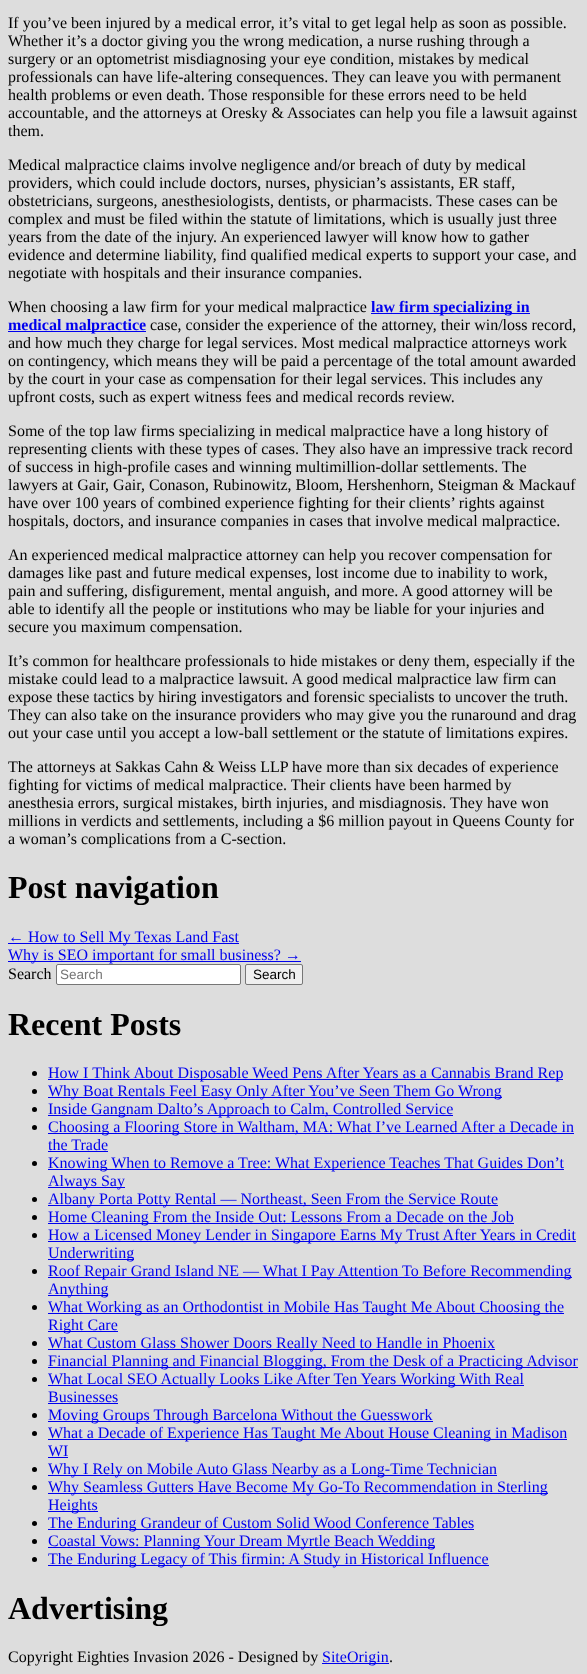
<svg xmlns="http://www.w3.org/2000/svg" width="587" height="1674">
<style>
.a{font:16px Liberation Serif;fill:#000}
.b{font:bold 16px Liberation Serif;fill:#00e}
.c{font:bold 32px Liberation Serif;fill:#000}
.d{font:16px Liberation Serif;fill:#00e}
.e{font:13.5px Liberation Sans;fill:#757575}
.f{font:13.5px Liberation Sans;fill:#000}
</style>
<rect width="100%" height="100%" fill="#ddd"/>
<path fill="#00e" d="M371 313h159v1H371z"/>
<path fill="#00e" d="M8 331h138v1H8z"/>
<path fill="#00e" d="M8 943h231v1H8z"/>
<path fill="#00e" d="M8 961h293v1H8z"/>
<rect fill="#fff" stroke="#767676" x="56.5" y="964.5" width="184" height="20" rx="1.5"/>
<rect fill="#efefef" stroke="#767676" x="245.5" y="964.5" width="57" height="20" rx="1.5"/>
<circle fill="#000" cx="34.5" cy="1073.5" r="2.5"/>
<path fill="#00e" d="M48 1079h515v1H48z"/>
<circle fill="#000" cx="34.5" cy="1091.5" r="2.5"/>
<path fill="#00e" d="M48 1097h454v1H48z"/>
<circle fill="#000" cx="34.5" cy="1109.5" r="2.5"/>
<path fill="#00e" d="M48 1115h405v1H48z"/>
<circle fill="#000" cx="34.5" cy="1127.5" r="2.5"/>
<path fill="#00e" d="M48 1133h526v1H48z"/>
<path fill="#00e" d="M48 1151h60v1H48z"/>
<circle fill="#000" cx="34.5" cy="1163.5" r="2.5"/>
<path fill="#00e" d="M48 1169h516v1H48z"/>
<path fill="#00e" d="M48 1187h77v1H48z"/>
<circle fill="#000" cx="34.5" cy="1199.5" r="2.5"/>
<path fill="#00e" d="M48 1205h450v1H48z"/>
<circle fill="#000" cx="34.5" cy="1217.5" r="2.5"/>
<path fill="#00e" d="M48 1223h466v1H48z"/>
<circle fill="#000" cx="34.5" cy="1235.5" r="2.5"/>
<path fill="#00e" d="M48 1241h528v1H48z"/>
<path fill="#00e" d="M48 1259h86v1H48z"/>
<circle fill="#000" cx="34.5" cy="1271.5" r="2.5"/>
<path fill="#00e" d="M48 1277h524v1H48z"/>
<path fill="#00e" d="M48 1295h60v1H48z"/>
<circle fill="#000" cx="34.5" cy="1307.5" r="2.5"/>
<path fill="#00e" d="M48 1313h516v1H48z"/>
<path fill="#00e" d="M48 1331h70v1H48z"/>
<circle fill="#000" cx="34.5" cy="1343.5" r="2.5"/>
<path fill="#00e" d="M48 1349h447v1H48z"/>
<circle fill="#000" cx="34.5" cy="1361.5" r="2.5"/>
<path fill="#00e" d="M48 1367h530v1H48z"/>
<circle fill="#000" cx="34.5" cy="1379.5" r="2.5"/>
<path fill="#00e" d="M48 1385h476v1H48z"/>
<path fill="#00e" d="M48 1403h70v1H48z"/>
<circle fill="#000" cx="34.5" cy="1415.5" r="2.5"/>
<path fill="#00e" d="M48 1421h385v1H48z"/>
<circle fill="#000" cx="34.5" cy="1433.5" r="2.5"/>
<path fill="#00e" d="M48 1439h519v1H48z"/>
<path fill="#00e" d="M48 1457h20v1H48z"/>
<circle fill="#000" cx="34.5" cy="1469.5" r="2.5"/>
<path fill="#00e" d="M48 1475h449v1H48z"/>
<circle fill="#000" cx="34.5" cy="1487.5" r="2.5"/>
<path fill="#00e" d="M48 1493h500v1H48z"/>
<path fill="#00e" d="M48 1511h50v1H48z"/>
<circle fill="#000" cx="34.5" cy="1523.5" r="2.5"/>
<path fill="#00e" d="M48 1529h426v1H48z"/>
<circle fill="#000" cx="34.5" cy="1541.5" r="2.5"/>
<path fill="#00e" d="M48 1547h387v1H48z"/>
<circle fill="#000" cx="34.5" cy="1559.5" r="2.5"/>
<path fill="#00e" d="M48 1565h441v1H48z"/>
<path fill="#00e" d="M322 1663h67v1H322z"/>
<text class="a" x="8" y="28">If you’ve been injured by a medical error, it’s vital to get legal help as soon as possible.</text>
<text class="a" x="8" y="46">Whether it’s a doctor giving you the wrong medication, a nurse rushing through a</text>
<text class="a" x="8" y="64">surgery or an optometrist misdiagnosing your eye condition, mistakes by medical</text>
<text class="a" x="8" y="82">professionals can have life-altering consequences. They can leave you with permanent</text>
<text class="a" x="8" y="100">health problems or even death. Those responsible for these errors need to be held</text>
<text class="a" x="8" y="118">accountable, and the attorneys at Oresky &amp; Associates can help you file a lawsuit against</text>
<text class="a" x="8" y="136">them.</text>
<text class="a" x="8" y="170">Medical malpractice claims involve negligence and/or breach of duty by medical</text>
<text class="a" x="8" y="188">providers, which could include doctors, nurses, physician’s assistants, ER staff,</text>
<text class="a" x="8" y="206">obstetricians, surgeons, anesthesiologists, dentists, or pharmacists. These cases can be</text>
<text class="a" x="8" y="224">complex and must be filed within the statute of limitations, which is usually just three</text>
<text class="a" x="8" y="242">years from the date of the injury. An experienced lawyer will know how to gather</text>
<text class="a" x="8" y="260">evidence and determine liability, find qualified medical experts to support your case, and</text>
<text class="a" x="8" y="278">negotiate with hospitals and their insurance companies.</text>
<text class="a" x="8" y="312">When choosing a law firm for your medical malpractice</text>
<text class="b" x="371" y="312">law firm specializing in</text>
<text class="b" x="8" y="330">medical malpractice</text>
<text class="a" x="150" y="330">case, consider the experience of the attorney, their win/loss record,</text>
<text class="a" x="8" y="348">and how much they charge for legal services. Most medical malpractice attorneys work</text>
<text class="a" x="8" y="366">on contingency, which means they will be paid a percentage of the total amount awarded</text>
<text class="a" x="8" y="384">by the court in your case as compensation for their legal services. This includes any</text>
<text class="a" x="8" y="402">upfront costs, such as expert witness fees and medical records review.</text>
<text class="a" x="8" y="436">Some of the top law firms specializing in medical malpractice have a long history of</text>
<text class="a" x="8" y="454">representing clients with these types of cases. They also have an impressive track record</text>
<text class="a" x="8" y="472">of success in high-profile cases and winning multimillion-dollar settlements. The</text>
<text class="a" x="8" y="490">lawyers at Gair, Gair, Conason, Rubinowitz, Bloom, Hershenhorn, Steigman &amp; Mackauf</text>
<text class="a" x="8" y="508">have over 100 years of combined experience fighting for their clients’ rights against</text>
<text class="a" x="8" y="526">hospitals, doctors, and insurance companies in cases that involve medical malpractice.</text>
<text class="a" x="8" y="560">An experienced medical malpractice attorney can help you recover compensation for</text>
<text class="a" x="8" y="578">damages like past and future medical expenses, lost income due to inability to work,</text>
<text class="a" x="8" y="596">pain and suffering, disfigurement, mental anguish, and more. A good attorney will be</text>
<text class="a" x="8" y="614">able to identify all the people or institutions who may be liable for your injuries and</text>
<text class="a" x="8" y="632">secure you maximum compensation.</text>
<text class="a" x="8" y="666">It’s common for healthcare professionals to hide mistakes or deny them, especially if the</text>
<text class="a" x="8" y="684">mistake could lead to a malpractice lawsuit. A good medical malpractice law firm can</text>
<text class="a" x="8" y="702">expose these tactics by hiring investigators and forensic specialists to uncover the truth.</text>
<text class="a" x="8" y="720">They can also take on the insurance providers who may give you the runaround and drag</text>
<text class="a" x="8" y="738">out your case until you accept a low-ball settlement or the statute of limitations expires.</text>
<text class="a" x="8" y="772">The attorneys at Sakkas Cahn &amp; Weiss LLP have more than six decades of experience</text>
<text class="a" x="8" y="790">fighting for victims of medical malpractice. Their clients have been harmed by</text>
<text class="a" x="8" y="808">anesthesia errors, surgical mistakes, birth injuries, and misdiagnosis. They have won</text>
<text class="a" x="8" y="826">millions in verdicts and settlements, including a $6 million payout in Queens County for</text>
<text class="a" x="8" y="844">a woman’s complications from a C-section.</text>
<text class="c" x="8" y="898">Post navigation</text>
<text class="d" x="8" y="942">← How to Sell My Texas Land Fast</text>
<text class="d" x="8" y="960">Why is SEO important for small business? →</text>
<text class="a" x="8" y="979">Search</text>
<text class="e" x="60" y="979">Search</text>
<text class="f" x="253" y="979">Search</text>
<text class="c" x="8" y="1035">Recent Posts</text>
<text class="d" x="48" y="1078">How I Think About Disposable Weed Pens After Years as a Cannabis Brand Rep</text>
<text class="d" x="48" y="1096">Why Boat Rentals Feel Easy Only After You’ve Seen Them Go Wrong</text>
<text class="d" x="48" y="1114">Inside Gangnam Dalto’s Approach to Calm, Controlled Service</text>
<text class="d" x="48" y="1132">Choosing a Flooring Store in Waltham, MA: What I’ve Learned After a Decade in</text>
<text class="d" x="48" y="1150">the Trade</text>
<text class="d" x="48" y="1168">Knowing When to Remove a Tree: What Experience Teaches That Guides Don’t</text>
<text class="d" x="48" y="1186">Always Say</text>
<text class="d" x="48" y="1204">Albany Porta Potty Rental — Northeast, Seen From the Service Route</text>
<text class="d" x="48" y="1222">Home Cleaning From the Inside Out: Lessons From a Decade on the Job</text>
<text class="d" x="48" y="1240">How a Licensed Money Lender in Singapore Earns My Trust After Years in Credit</text>
<text class="d" x="48" y="1258">Underwriting</text>
<text class="d" x="48" y="1276">Roof Repair Grand Island NE — What I Pay Attention To Before Recommending</text>
<text class="d" x="48" y="1294">Anything</text>
<text class="d" x="48" y="1312">What Working as an Orthodontist in Mobile Has Taught Me About Choosing the</text>
<text class="d" x="48" y="1330">Right Care</text>
<text class="d" x="48" y="1348">What Custom Glass Shower Doors Really Need to Handle in Phoenix</text>
<text class="d" x="48" y="1366">Financial Planning and Financial Blogging, From the Desk of a Practicing Advisor</text>
<text class="d" x="48" y="1384">What Local SEO Actually Looks Like After Ten Years Working With Real</text>
<text class="d" x="48" y="1402">Businesses</text>
<text class="d" x="48" y="1420">Moving Groups Through Barcelona Without the Guesswork</text>
<text class="d" x="48" y="1438">What a Decade of Experience Has Taught Me About House Cleaning in Madison</text>
<text class="d" x="48" y="1456">WI</text>
<text class="d" x="48" y="1474">Why I Rely on Mobile Auto Glass Nearby as a Long-Time Technician</text>
<text class="d" x="48" y="1492">Why Seamless Gutters Have Become My Go-To Recommendation in Sterling</text>
<text class="d" x="48" y="1510">Heights</text>
<text class="d" x="48" y="1528">The Enduring Grandeur of Custom Solid Wood Conference Tables</text>
<text class="d" x="48" y="1546">Coastal Vows: Planning Your Dream Myrtle Beach Wedding</text>
<text class="d" x="48" y="1564">The Enduring Legacy of This firmin: A Study in Historical Influence</text>
<text class="c" x="8" y="1619">Advertising</text>
<text class="a" x="8" y="1662">Copyright Eighties Invasion 2026 - Designed by</text>
<text class="d" x="322" y="1662">SiteOrigin</text>
<text class="a" x="389" y="1662">.</text>
</svg>
